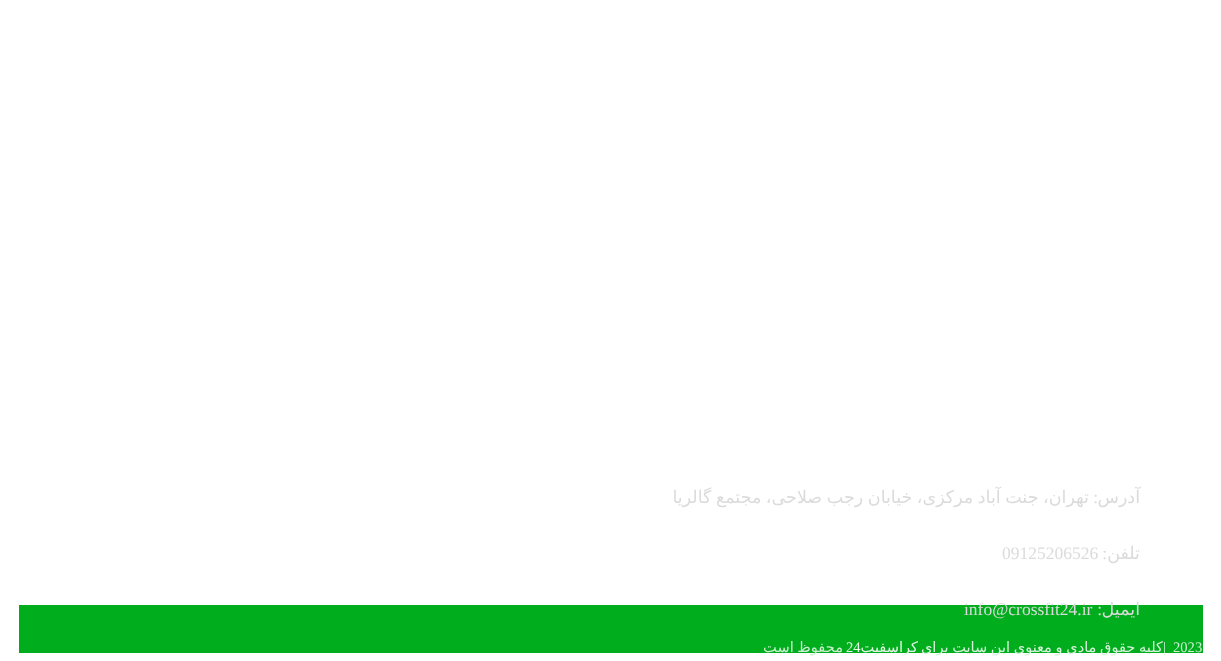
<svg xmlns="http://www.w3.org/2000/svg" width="1221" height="661">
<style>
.a{font:17.5px DejaVu Sans;direction:rtl;fill:#dbdbdb}
.b{font:17.5px Liberation Serif;direction:rtl;fill:#dbdbdb}
.c{font:17.5px Liberation Serif;fill:#dbdbdb}
.d{font:14.6px Liberation Serif;fill:#ccefd2}
.e{font:14.6px Liberation Serif;fill:#d6f2db}
.f{font:14.6px DejaVu Sans;direction:rtl;fill:#d6f2db}
.g{font:14.6px DejaVu Sans;direction:rtl;fill:#e6f7e8}
.h{font:14.6px Liberation Serif;fill:#e6f7e8}
.i{font:14.6px DejaVu Sans;direction:rtl;fill:#ccefd2}
</style>
<rect width="100%" height="100%" fill="#fff"/>
<path fill="#00ae1d" d="M19 605h1184v48H19z"/>
<text class="a" x="1140" y="503">آدرس</text>
<text class="b" x="1098" y="503">:</text>
<text class="a" x="1089" y="503" word-spacing="-1">تهران، جنت آباد مرکزی، خیابان رجب صلاحی، مجتمع گالریا</text>
<text class="a" x="1140" y="559">تلفن</text>
<text class="b" x="1107" y="559">:</text>
<text class="c" x="1002" y="559">09125206526</text>
<text class="a" x="1140" y="615">ایمیل</text>
<text class="b" x="1102" y="615">:</text>
<text class="c" x="964" y="615">info@crossfit24.ir</text>
<text class="d" x="1173" y="652">2023</text>
<text class="e" x="1163" y="652">|</text>
<text class="f" x="1163" y="652" word-spacing="-1">کلیه حقوق مادی و معنوی این سایت برای</text>
<text class="g" x="918" y="652">کراسفیت</text>
<text class="h" x="846" y="652">24</text>
<text class="i" x="843" y="652" word-spacing="-1">محفوظ است</text>
</svg>
